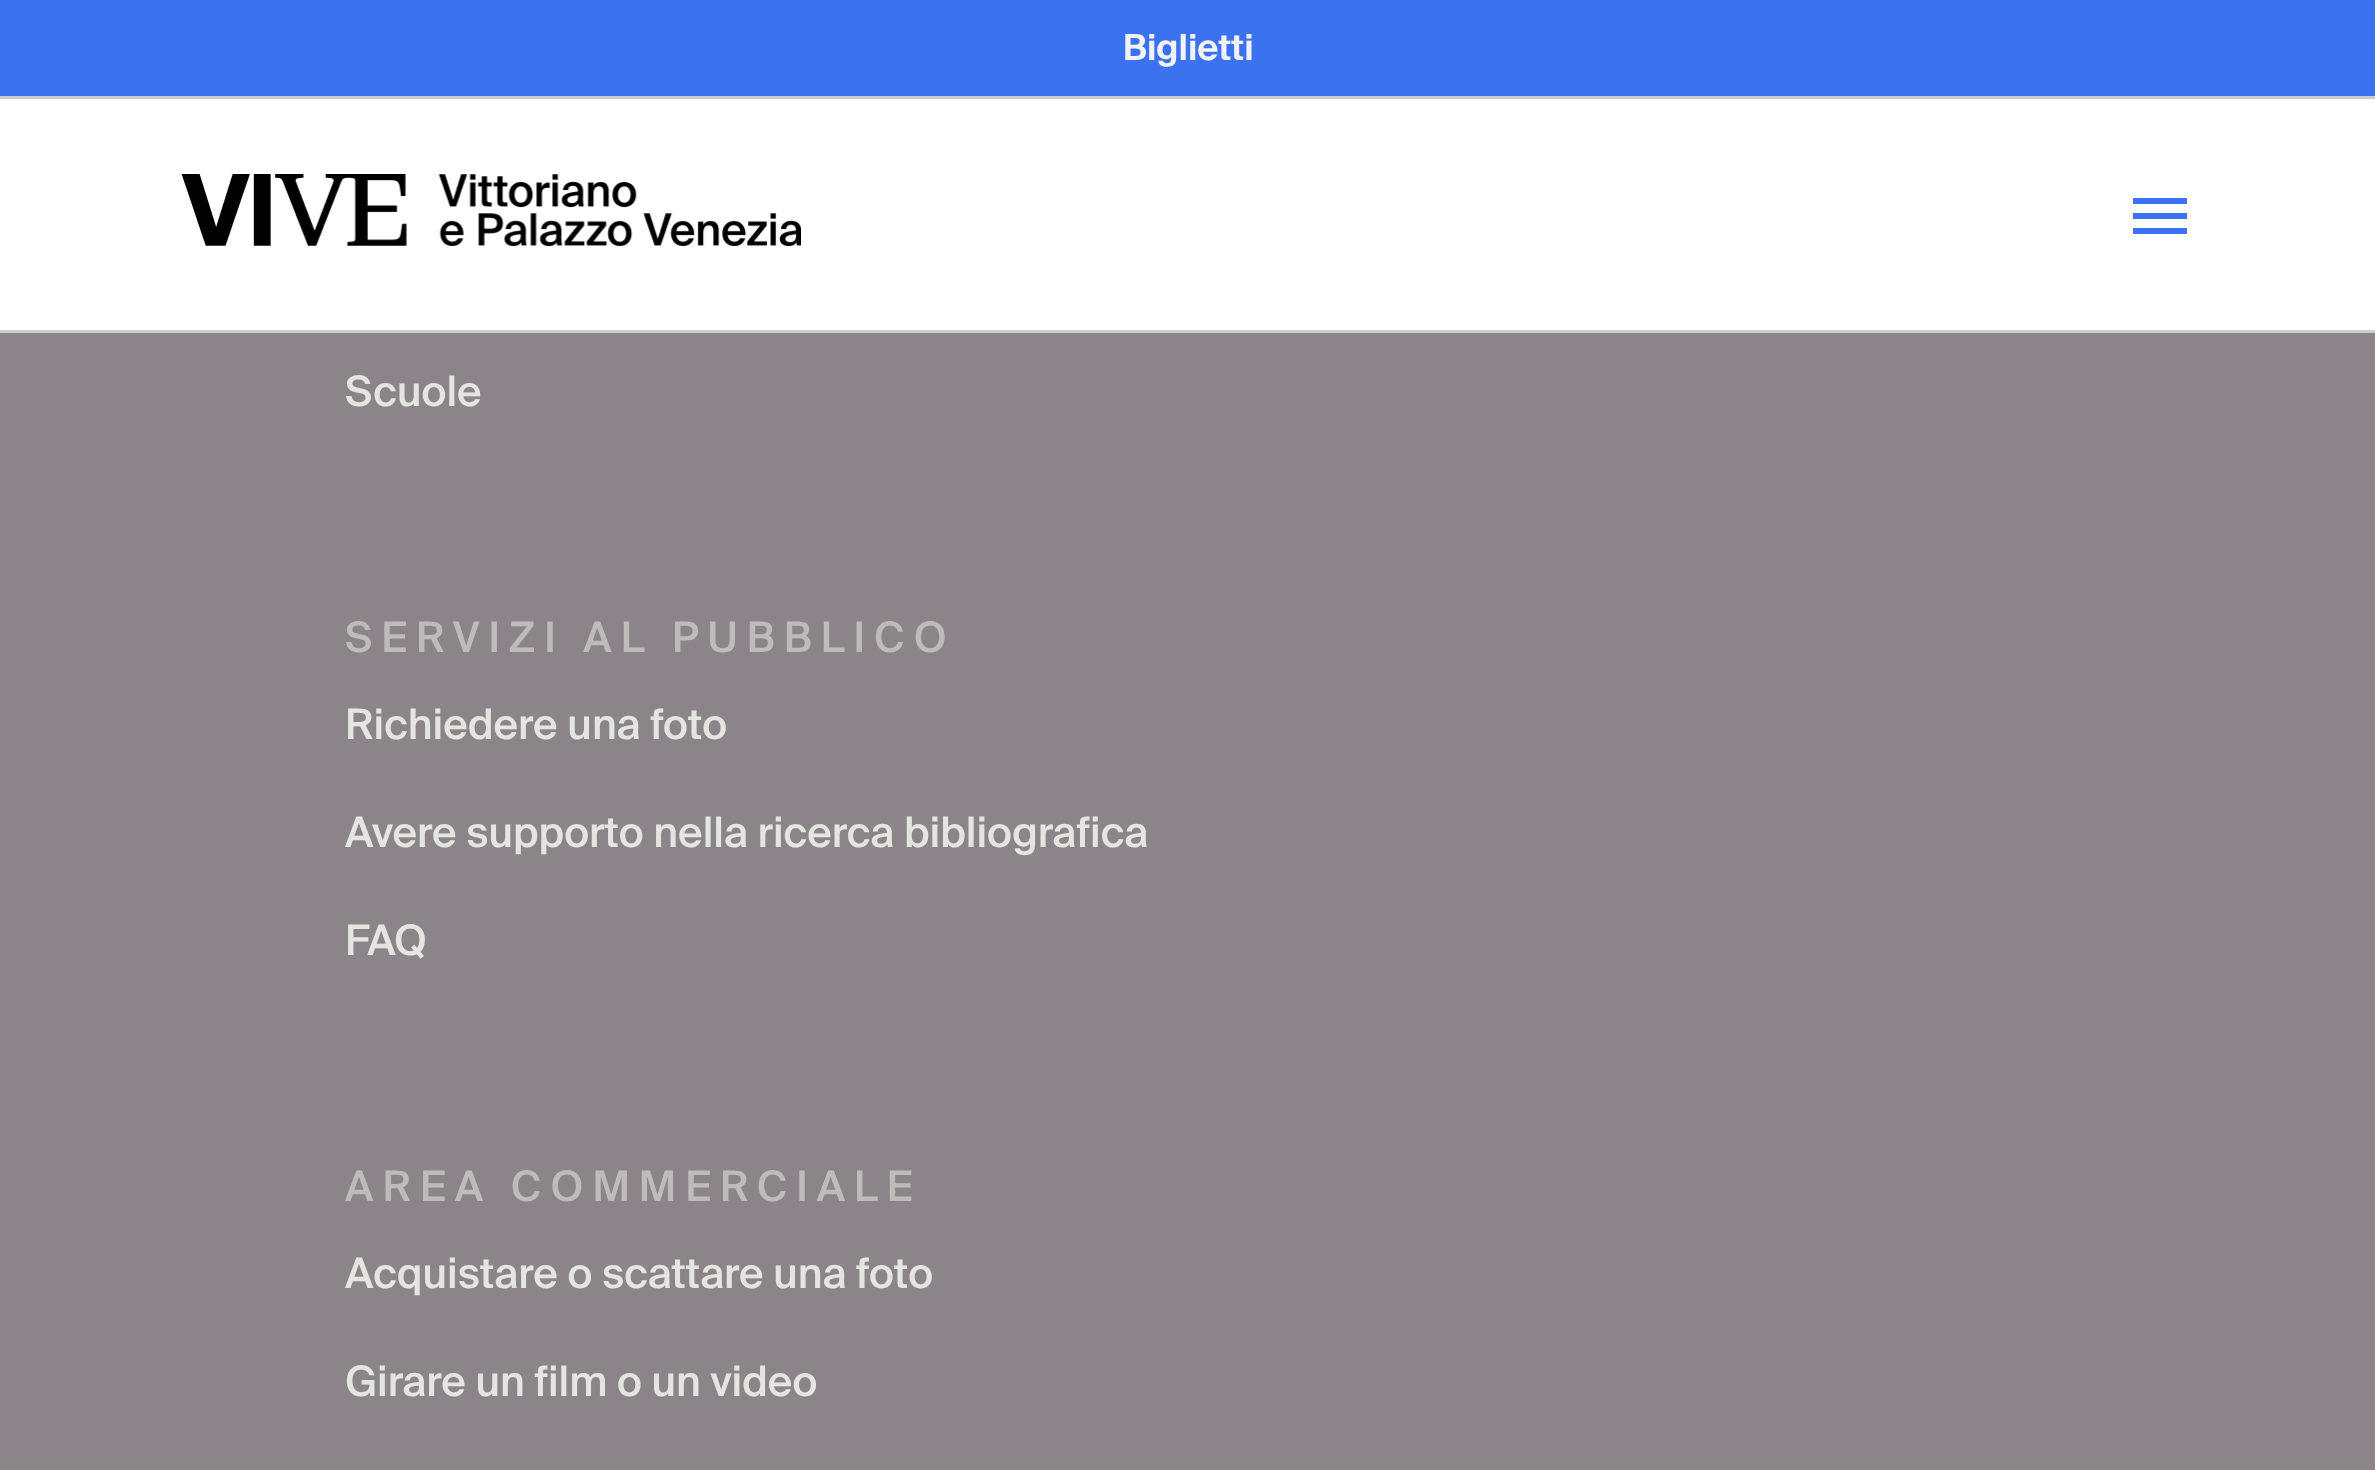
<svg xmlns="http://www.w3.org/2000/svg" width="2375" height="1470">
<style>
.a{font:600 36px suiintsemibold;fill:#f2f3f4}
.b{font:500 42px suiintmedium;fill:#e4e5e0}
.c{font:500 42px suiintmedium;letter-spacing:9px;fill:#c0bbbb}
</style>
<rect width="100%" height="100%" fill="#8b8589"/>
<path fill="#ccc" d="M0 96h2375v3H0z"/>
<path fill="#3c72f0" d="M0 0h2375v96H0z"/>
<path fill="#fff" d="M0 99h2375v231H0z"/>
<path fill="#ccc" d="M0 330h2375v3H0z"/>
<image href="1.png" x="181" y="174" width="620" height="72"/>
<path fill="#3c72f0" d="M2133 198h54v6H2133z"/>
<path fill="#3c72f0" d="M2133 213h54v6H2133z"/>
<path fill="#3c72f0" d="M2133 228h54v6H2133z"/>
<text class="a" x="1123" y="60">Biglietti</text>
<text class="b" x="345" y="406">Scuole</text>
<text class="c" x="345" y="652">SERVIZI AL PUBBLICO</text>
<text class="b" x="345" y="739">Richiedere una foto</text>
<text class="b" x="345" y="847">Avere supporto nella ricerca bibliografica</text>
<text class="b" x="345" y="955">FAQ</text>
<text class="c" x="345" y="1201">AREA COMMERCIALE</text>
<text class="b" x="345" y="1288">Acquistare o scattare una foto</text>
<text class="b" x="345" y="1396">Girare un film o un video</text>
</svg>
